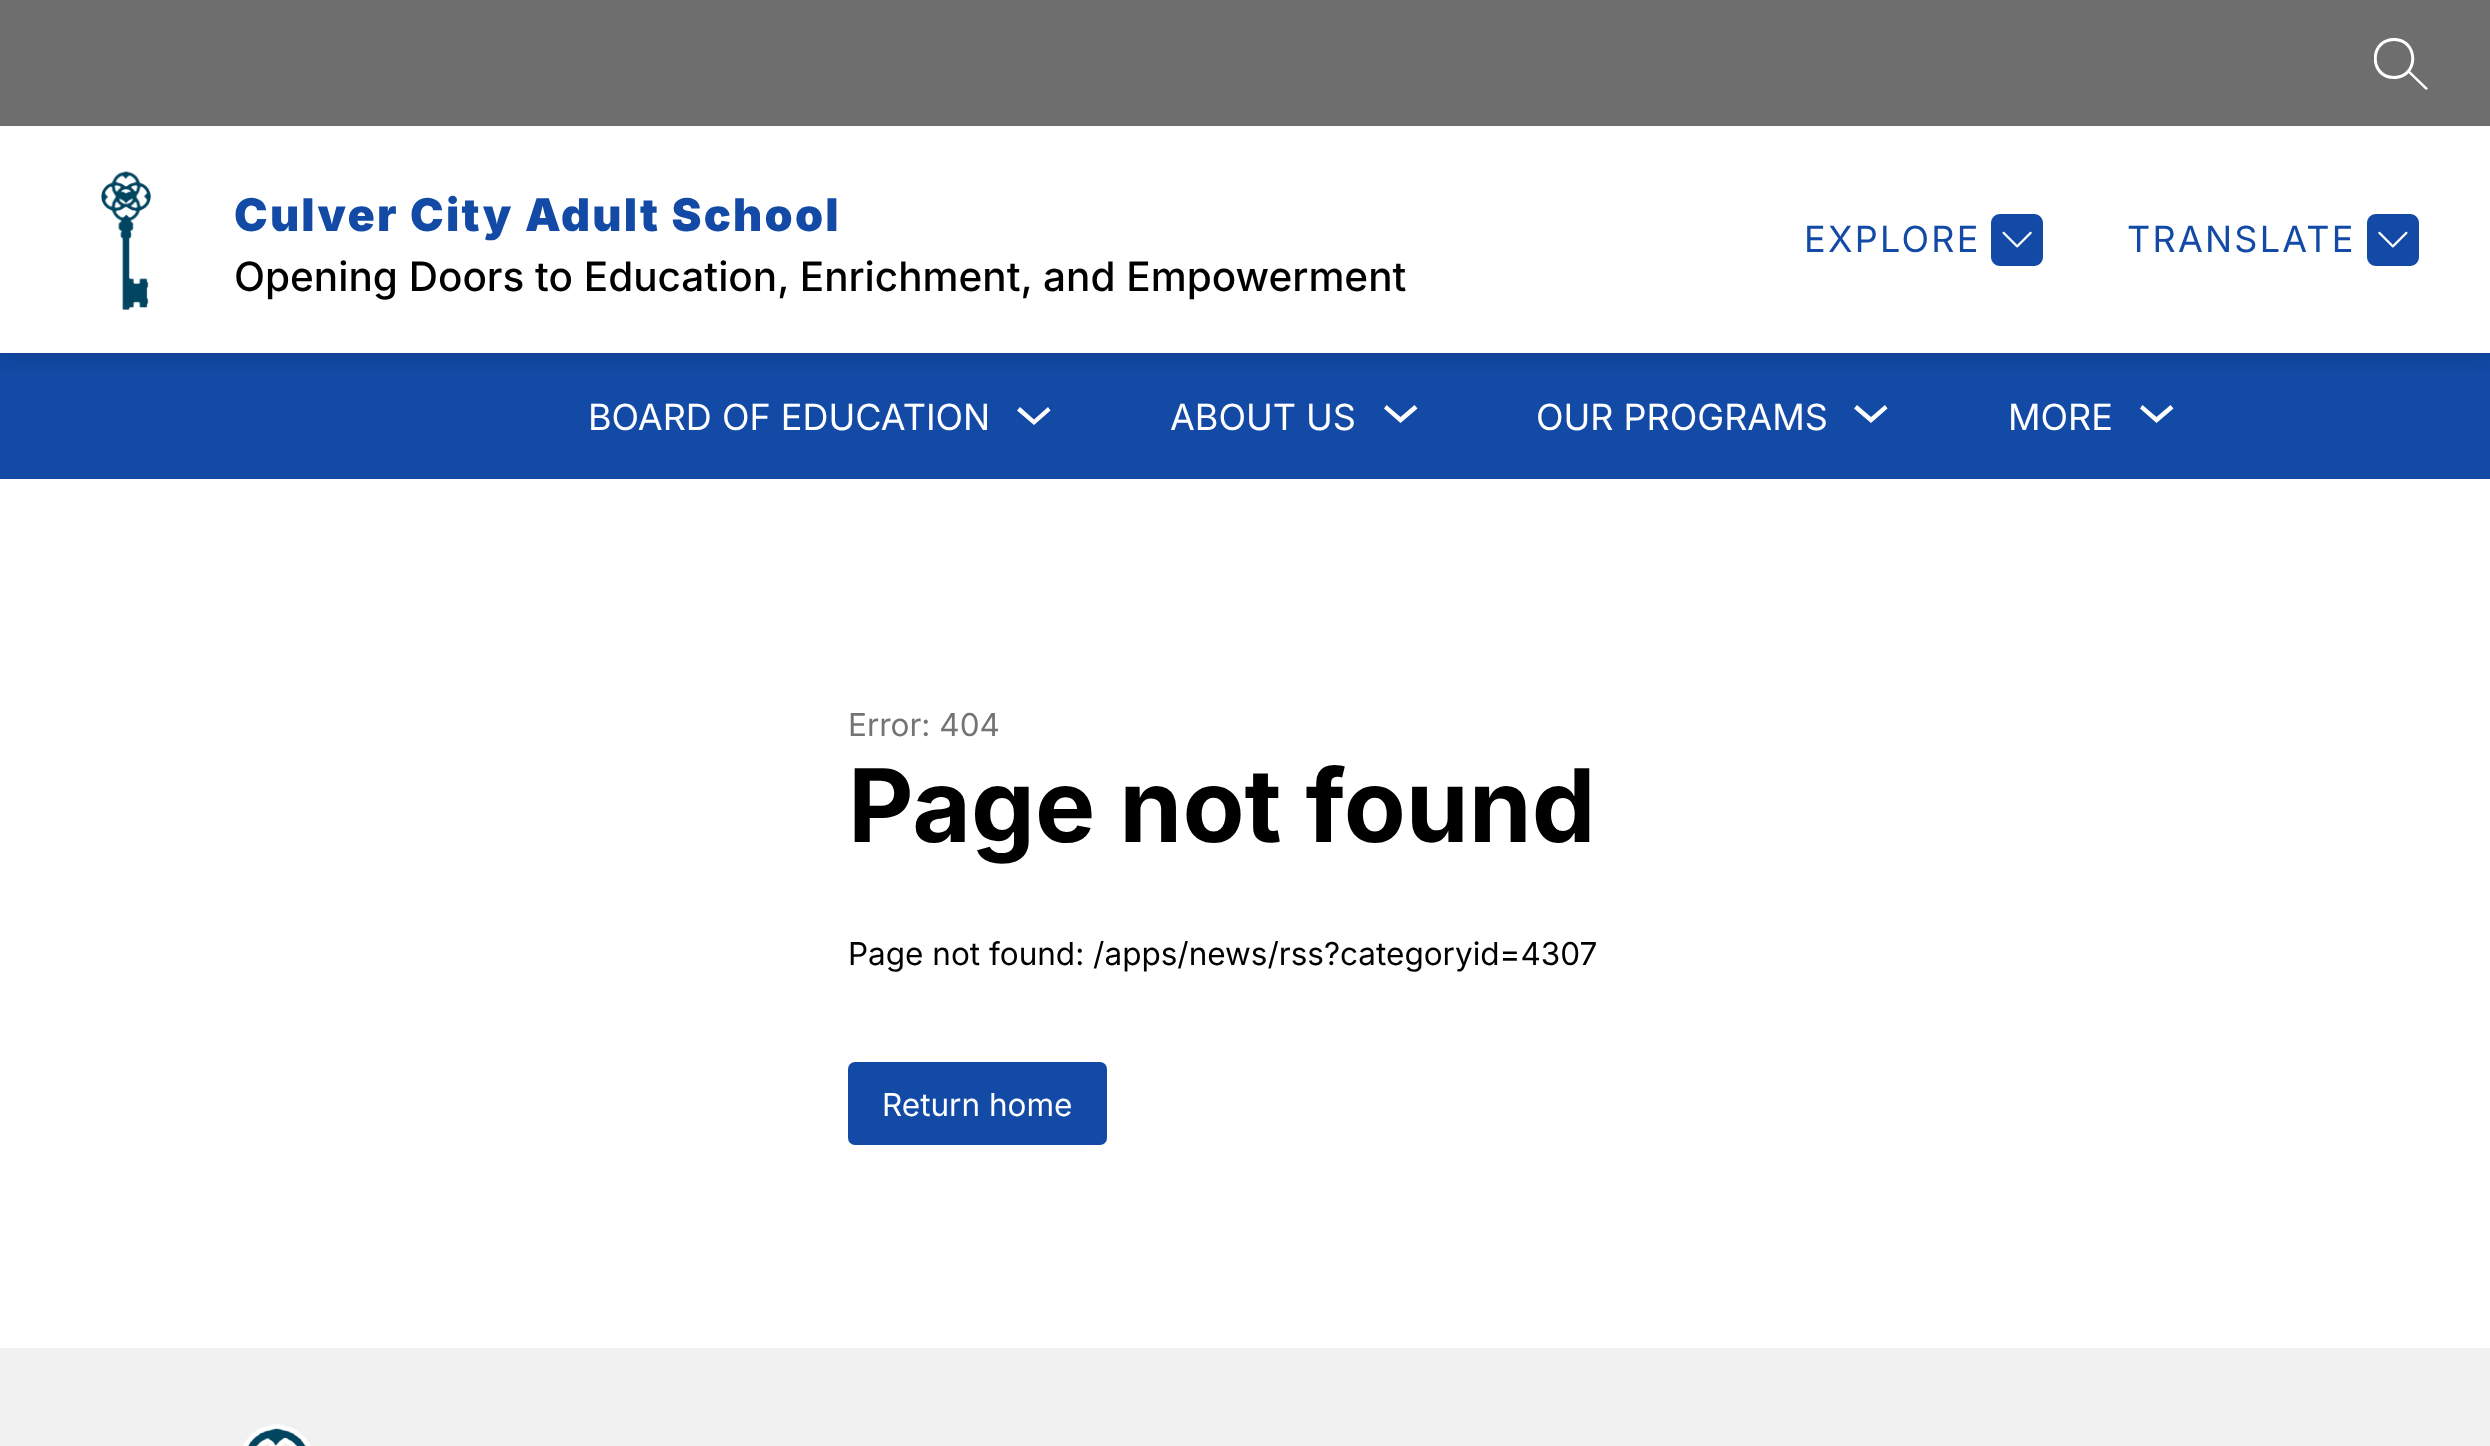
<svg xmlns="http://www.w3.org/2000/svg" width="2490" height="1446">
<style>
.a{font:900 45px Inter;letter-spacing:2.25px;fill:#124aa6}
.b{font:500 40.5px Inter;fill:#000}
.c{font:36px Inter;letter-spacing:2.25px;fill:#124aa6}
.d{font:36px Inter;fill:#fff}
.e{font:31.5px Inter;fill:#747474}
.f{font:bold 101.25px Inter;fill:#000}
.g{font:31.5px Inter;fill:#000}
.h{font:31.5px Inter;fill:#fff}
</style>
<defs>
<clipPath id="clip1"><path d="M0 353h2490v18H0z"/></clipPath>
<clipPath id="clip2"><path d="M2374 36h54v54H2374z"/></clipPath>
</defs>
<rect width="100%" height="100%" fill="#fff"/>
<path fill="#124aa6" d="M0 353h2490v126H0z"/>
<g clip-path="url(#clip1)">
<path fill="#0000001a" filter="blur(11px)" d="M0 9h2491v353H0z"/>
</g>
<path fill="#6e6e6e" d="M0 0h2490v126H0z"/>
<g clip-path="url(#clip2)">
<path fill="#fff" fill-rule="evenodd" d="M2394 76c23 0 23-35 0-35c-23 0-23 35 0 35zm0 3c27 0 27-41 0-41c-27 0-27 41 0 41z"/>
</g>
<path fill="#fff" fill-rule="evenodd" d="M2426 90l-18-17.5l1.5-2l18.5 18z"/>
<image href="1.png" x="101" y="171" width="50" height="139"/>
<image href="2.png" x="1991" y="214" width="52" height="52"/>
<image href="3.png" x="2367" y="214" width="52" height="52"/>
<path fill="#fff" fill-rule="evenodd" d="M1048 407l-14 12.5l-14-12.5l-3 3.5l17 14.5l16.5-14.5z"/>
<path fill="#fff" fill-rule="evenodd" d="M1414.5 405l-14 12l-14-12l-2.5 3.5l16.5 14.5l17-14.5z"/>
<path fill="#fff" fill-rule="evenodd" d="M1885 405l-14 12l-14-12l-3 3.5l17 14.5l16.5-14.5z"/>
<path fill="#fff" fill-rule="evenodd" d="M2170.5 405l-14 12l-14-12l-2.5 3.5l16.5 14.5l17-14.5z"/>
<rect fill="#124aa6" x="848" y="1062" width="259" height="83" rx="7"/>
<path fill="#f1f1f1" d="M0 1348h2490v98H0z"/>
<image href="4.png" x="243" y="1424" width="68" height="22"/>
<text class="a" x="234" y="231">Culver City Adult School</text>
<text class="b" x="234" y="291">Opening Doors to Education, Enrichment, and Empowerment</text>
<text class="c" x="1804" y="252">EXPLORE</text>
<text class="c" x="2127" y="252">TRANSLATE</text>
<text class="d" x="588" y="430">BOARD OF EDUCATION</text>
<text class="d" x="1170" y="430">ABOUT US</text>
<text class="d" x="1536" y="430">OUR PROGRAMS</text>
<text class="d" x="2008" y="430">MORE</text>
<text class="e" x="848" y="736">Error: 404</text>
<text class="f" x="848" y="842">Page not found</text>
<text class="g" x="848" y="965">Page not found: /apps/news/rss?categoryid=4307</text>
<text class="h" x="882" y="1116">Return home</text>
</svg>
